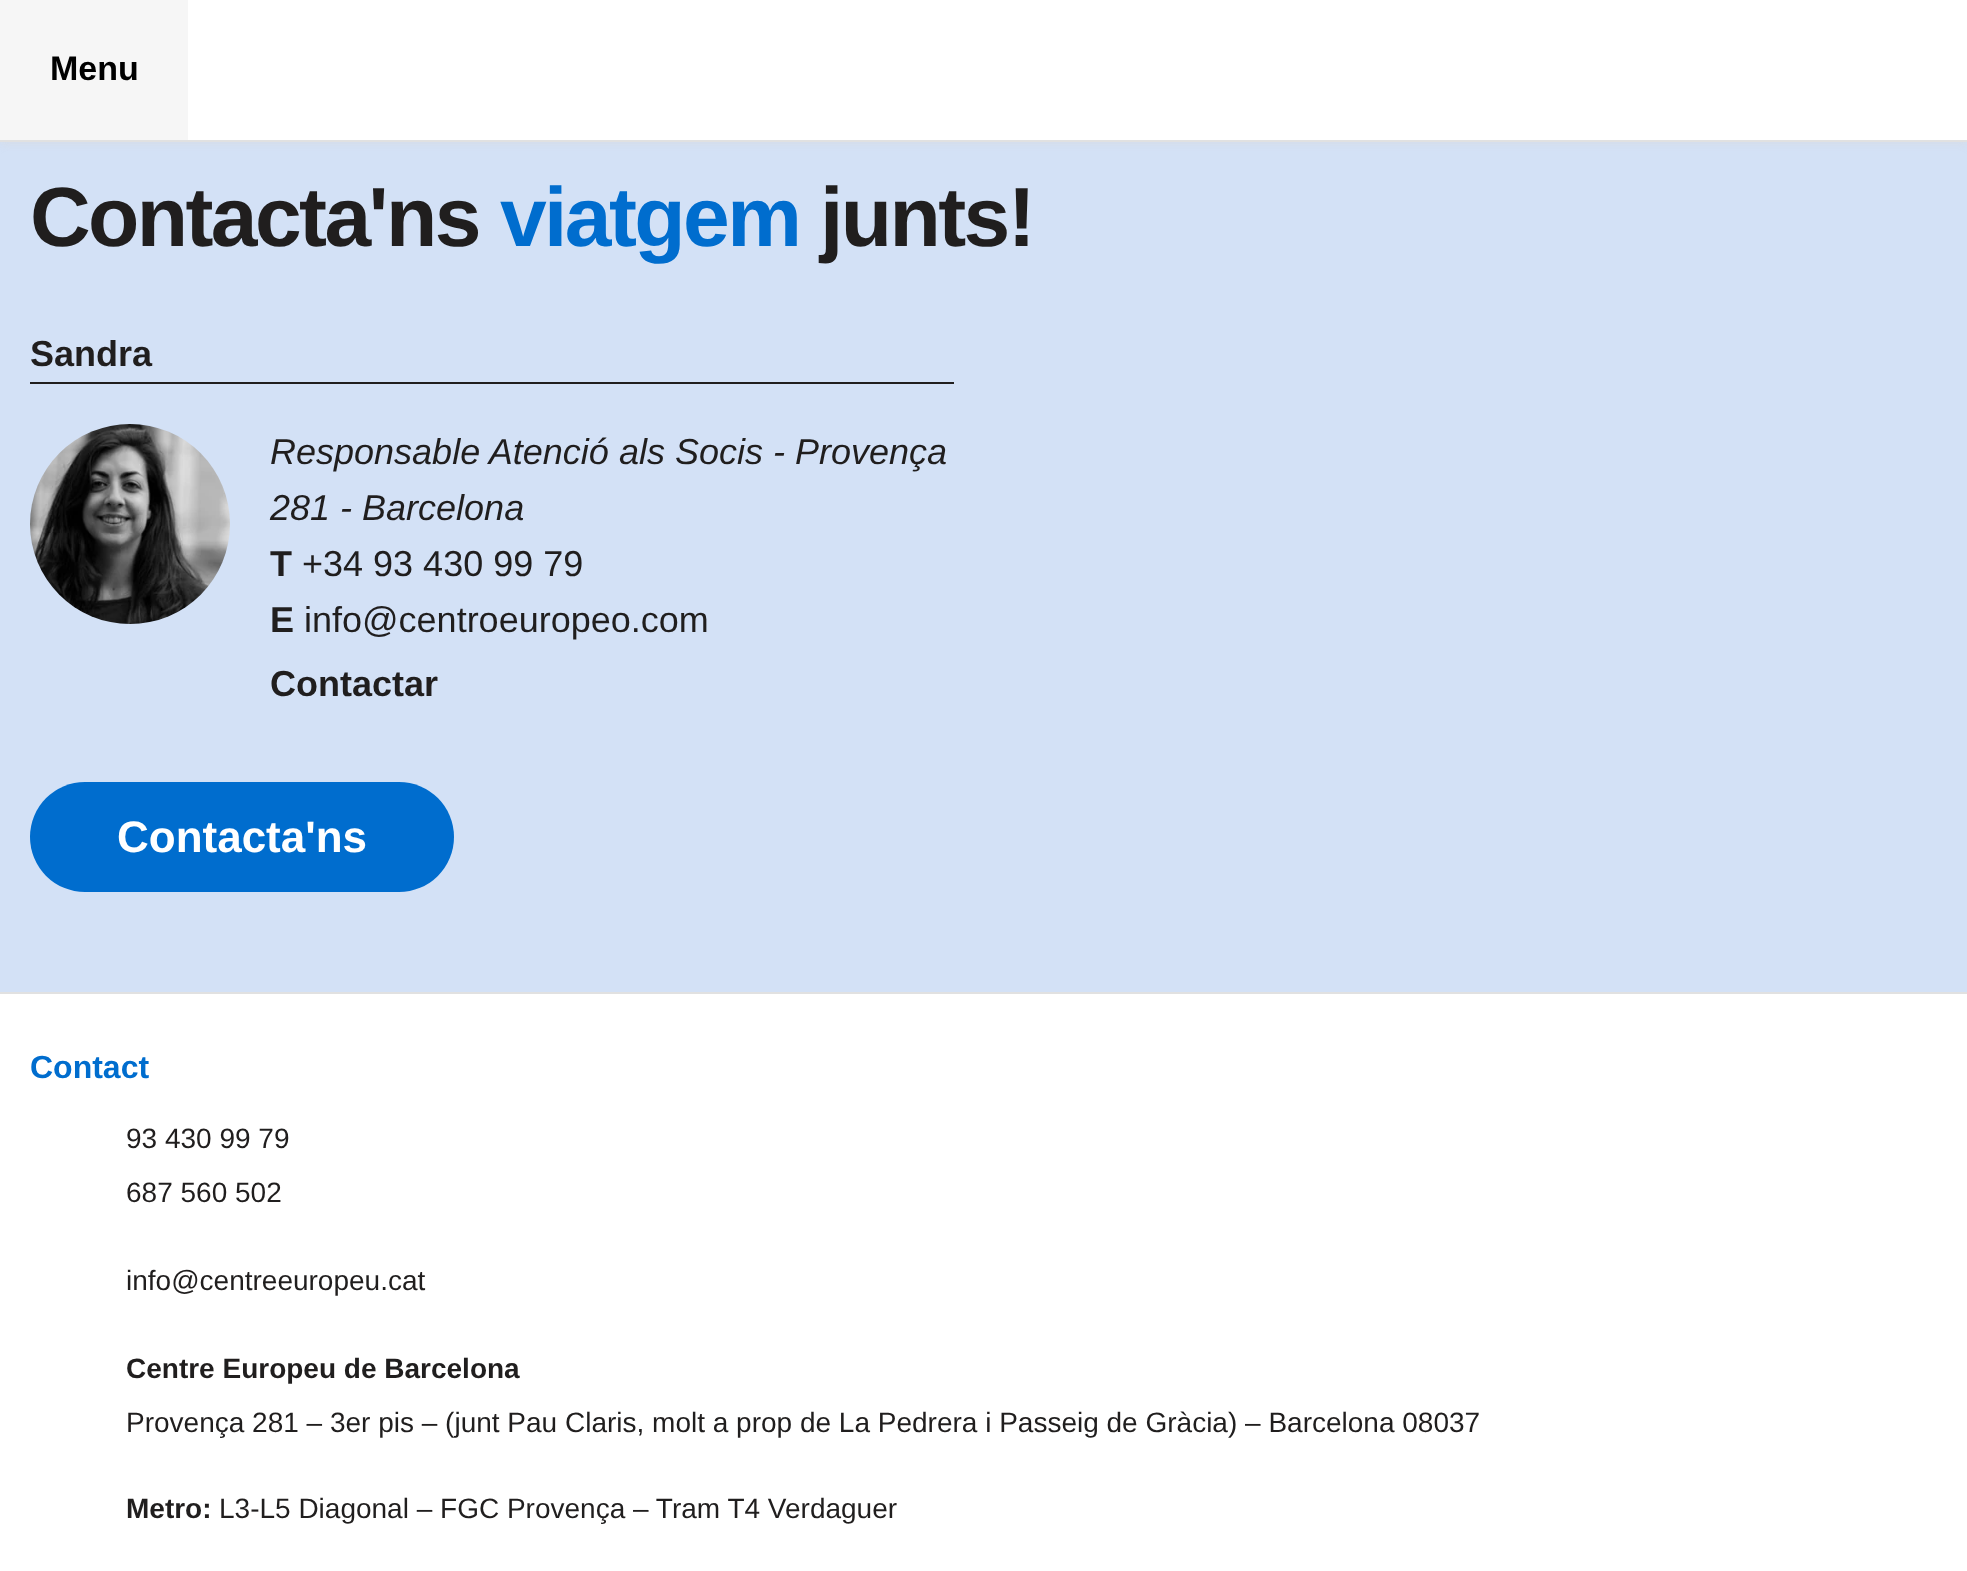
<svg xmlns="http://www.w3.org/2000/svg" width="1967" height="1571">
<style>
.a{font:bold 34px Liberation Sans;fill:#000}
.b{font:bold 84px Liberation Sans;letter-spacing:-2.6px;fill:#201e1e}
.c{font:bold 84px Liberation Sans;letter-spacing:-2.6px;fill:#006dce}
.d{font:bold 44px Liberation Sans;fill:#fff}
.e{font:bold 36px Liberation Sans;fill:#201e1e}
.f{font:italic 36px Liberation Sans;fill:#201e1e}
.g{font:36px Liberation Sans;fill:#201e1e}
.h{font:bold 32px Liberation Sans;fill:#006dce}
.i{font:28px Liberation Sans;fill:#201e1e}
.j{font:bold 28px Liberation Sans;fill:#201e1e}
</style>
<rect width="100%" height="100%" fill="#fff"/>
<path fill="#d3e1f6" d="M0 142h1967v850H0z"/>
<path fill="#d9d9d980" filter="blur(4px)" d="M0 4h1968v140H0z"/>
<path fill="#fff" d="M188 0h1779v140H188z"/>
<path fill="#f6f6f6" d="M0 0h188v140H0z"/>
<path fill="#e1e1e1" d="M0 140h1967v2H0z"/>
<rect fill="#006dce" x="30" y="782" width="424" height="110" rx="55"/>
<path fill="#201e1e" d="M30 382h924v2H30z"/>
<image href="1.png" x="30" y="424" width="200" height="200"/>
<path fill="#e1e1e1" d="M0 992h1967v2H0z"/>
<text class="a" x="50" y="80">Menu</text>
<text class="b" x="30" y="246">Contacta'ns</text>
<text class="c" x="500" y="246">viatgem</text>
<text class="b" x="820" y="246">junts!</text>
<text class="d" x="117" y="852">Contacta'ns</text>
<text class="e" x="30" y="366">Sandra</text>
<text class="f" x="270" y="464">Responsable Atenció als Socis - Provença</text>
<text class="f" x="270" y="520">281 - Barcelona</text>
<text class="e" x="270" y="576">T</text>
<text class="g" x="302" y="576">+34 93 430 99 79</text>
<text class="e" x="270" y="632">E</text>
<text class="g" x="304" y="632">info@centroeuropeo.com</text>
<text class="e" x="270" y="696">Contactar</text>
<text class="h" x="30" y="1078">Contact</text>
<text class="i" x="126" y="1148">93 430 99 79</text>
<text class="i" x="126" y="1202">687 560 502</text>
<text class="i" x="126" y="1290">info@centreeuropeu.cat</text>
<text class="j" x="126" y="1378">Centre Europeu de Barcelona</text>
<text class="i" x="126" y="1432">Provença 281 – 3er pis – (junt Pau Claris, molt a prop de La Pedrera i Passeig de Gràcia) – Barcelona 08037</text>
<text class="j" x="126" y="1518">Metro:</text>
<text class="i" x="219" y="1518">L3-L5 Diagonal – FGC Provença – Tram T4 Verdaguer</text>
</svg>
